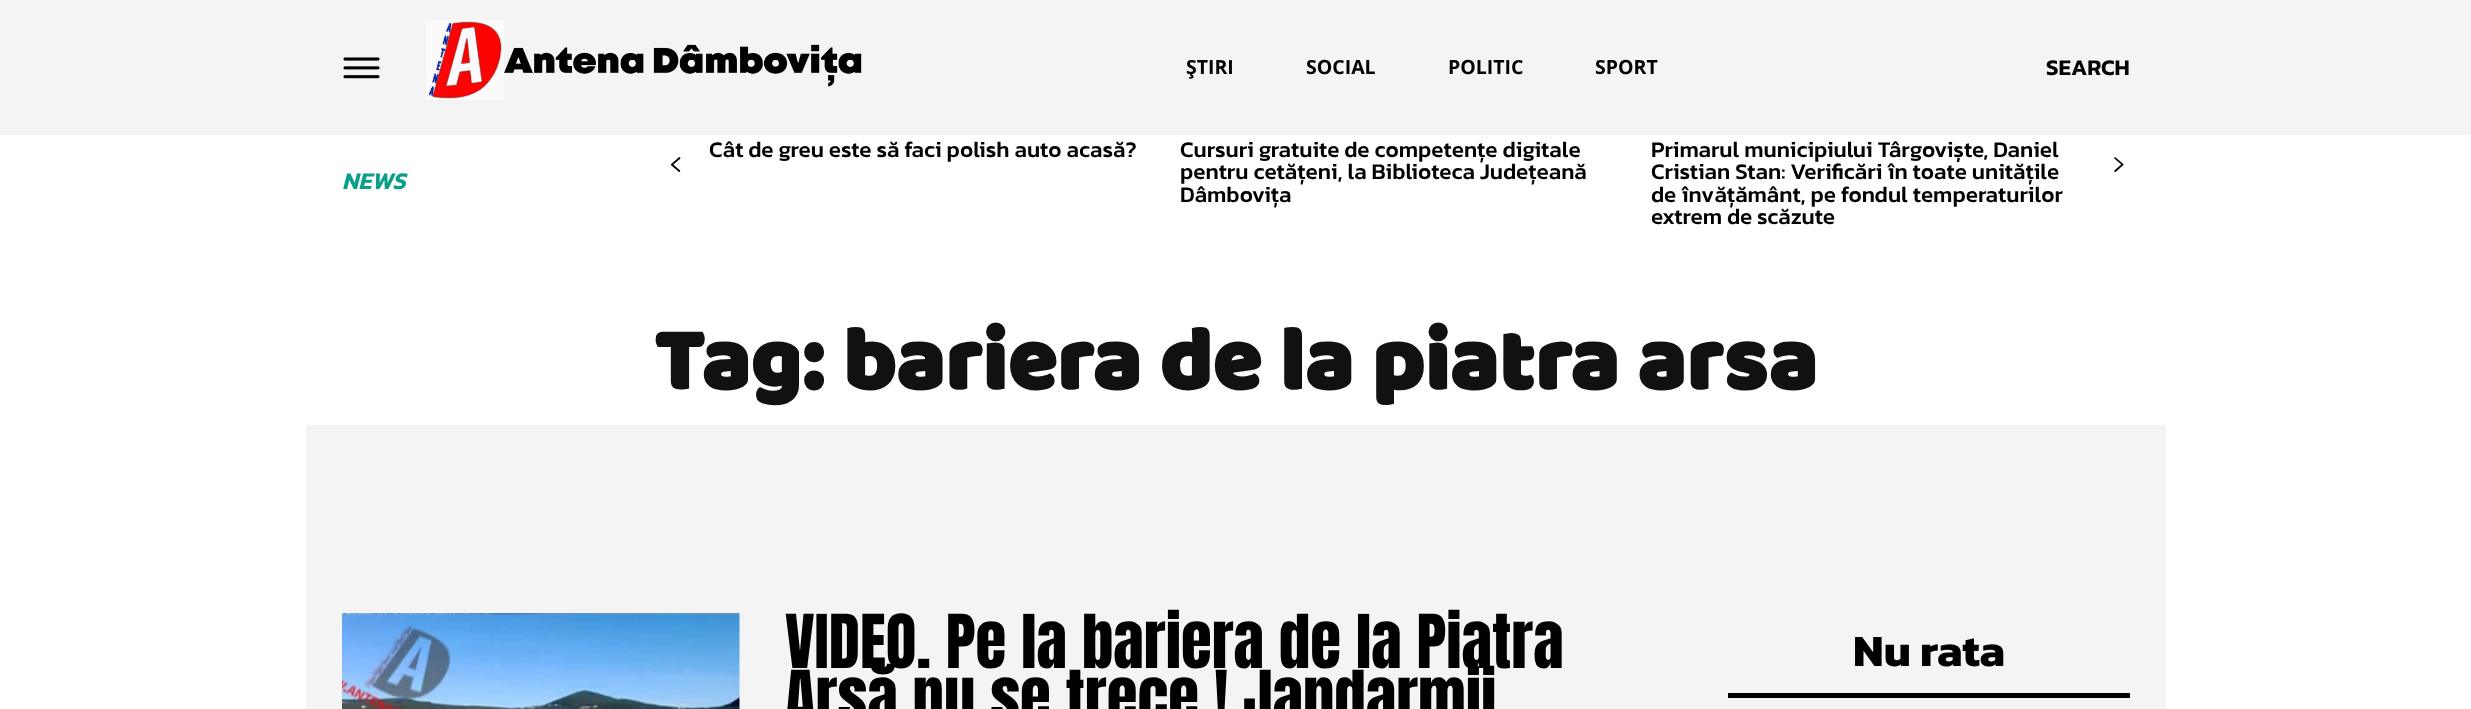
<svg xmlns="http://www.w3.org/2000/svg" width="2471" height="709">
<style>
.a{font:bold 19.5px Open Sans;fill:#000}
.b{font:600 22.5px Kanit;fill:#000}
.c{font:italic 600 24px Kanit;fill:#099f8a}
.d{font:500 22.5px Kanit;fill:#000}
.e{font:bold 90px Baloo;fill:#111}
.f{font:63px Anton;fill:#000}
.g{font:bold 45px Kanit;fill:#000}
</style>
<rect width="100%" height="100%" fill="#fff"/>
<path fill="#f4f4f4" d="M0 0h2471v135H0z"/>
<image href="1.png" x="343" y="57" width="37" height="22"/>
<image href="2.png" x="426" y="19" width="436" height="81"/>
<image href="3.png" x="670" y="157" width="11" height="16"/>
<image href="4.png" x="2114" y="157" width="10" height="16"/>
<path fill="#f4f4f4" d="M306 425h1860v284H306z"/>
<image href="5.png" x="342" y="613" width="398" height="96"/>
<path fill="#000" d="M1728 693h402v5H1728z"/>
<text class="a" x="1186" y="74">ŞTIRI</text>
<text class="a" x="1306" y="74">SOCIAL</text>
<text class="a" x="1448" y="74">POLITIC</text>
<text class="a" x="1595" y="74">SPORT</text>
<text class="b" x="2046" y="75">SEARCH</text>
<text class="c" x="342" y="189">NEWS</text>
<text class="d" x="709" y="157">Cât de greu este să faci polish auto acasă?</text>
<text class="d" x="1180" y="157">Cursuri gratuite de competențe digitale</text>
<text class="d" x="1180" y="179">pentru cetățeni, la Biblioteca Județeană</text>
<text class="d" x="1180" y="202">Dâmbovița</text>
<text class="d" x="1651" y="157">Primarul municipiului Târgoviște, Daniel</text>
<text class="d" x="1651" y="179">Cristian Stan: Verificări în toate unitățile</text>
<text class="d" x="1651" y="202">de învățământ, pe fondul temperaturilor</text>
<text class="d" x="1651" y="224">extrem de scăzute</text>
<text class="e" x="654" y="389">Tag: bariera de la piatra arsa</text>
<text class="f" x="785" y="668">VIDEO. Pe la bariera de la Piatra</text>
<text class="f" x="785" y="724">Arsă nu se trece ! Jandarmii</text>
<text class="g" x="1853" y="666">Nu rata</text>
</svg>
